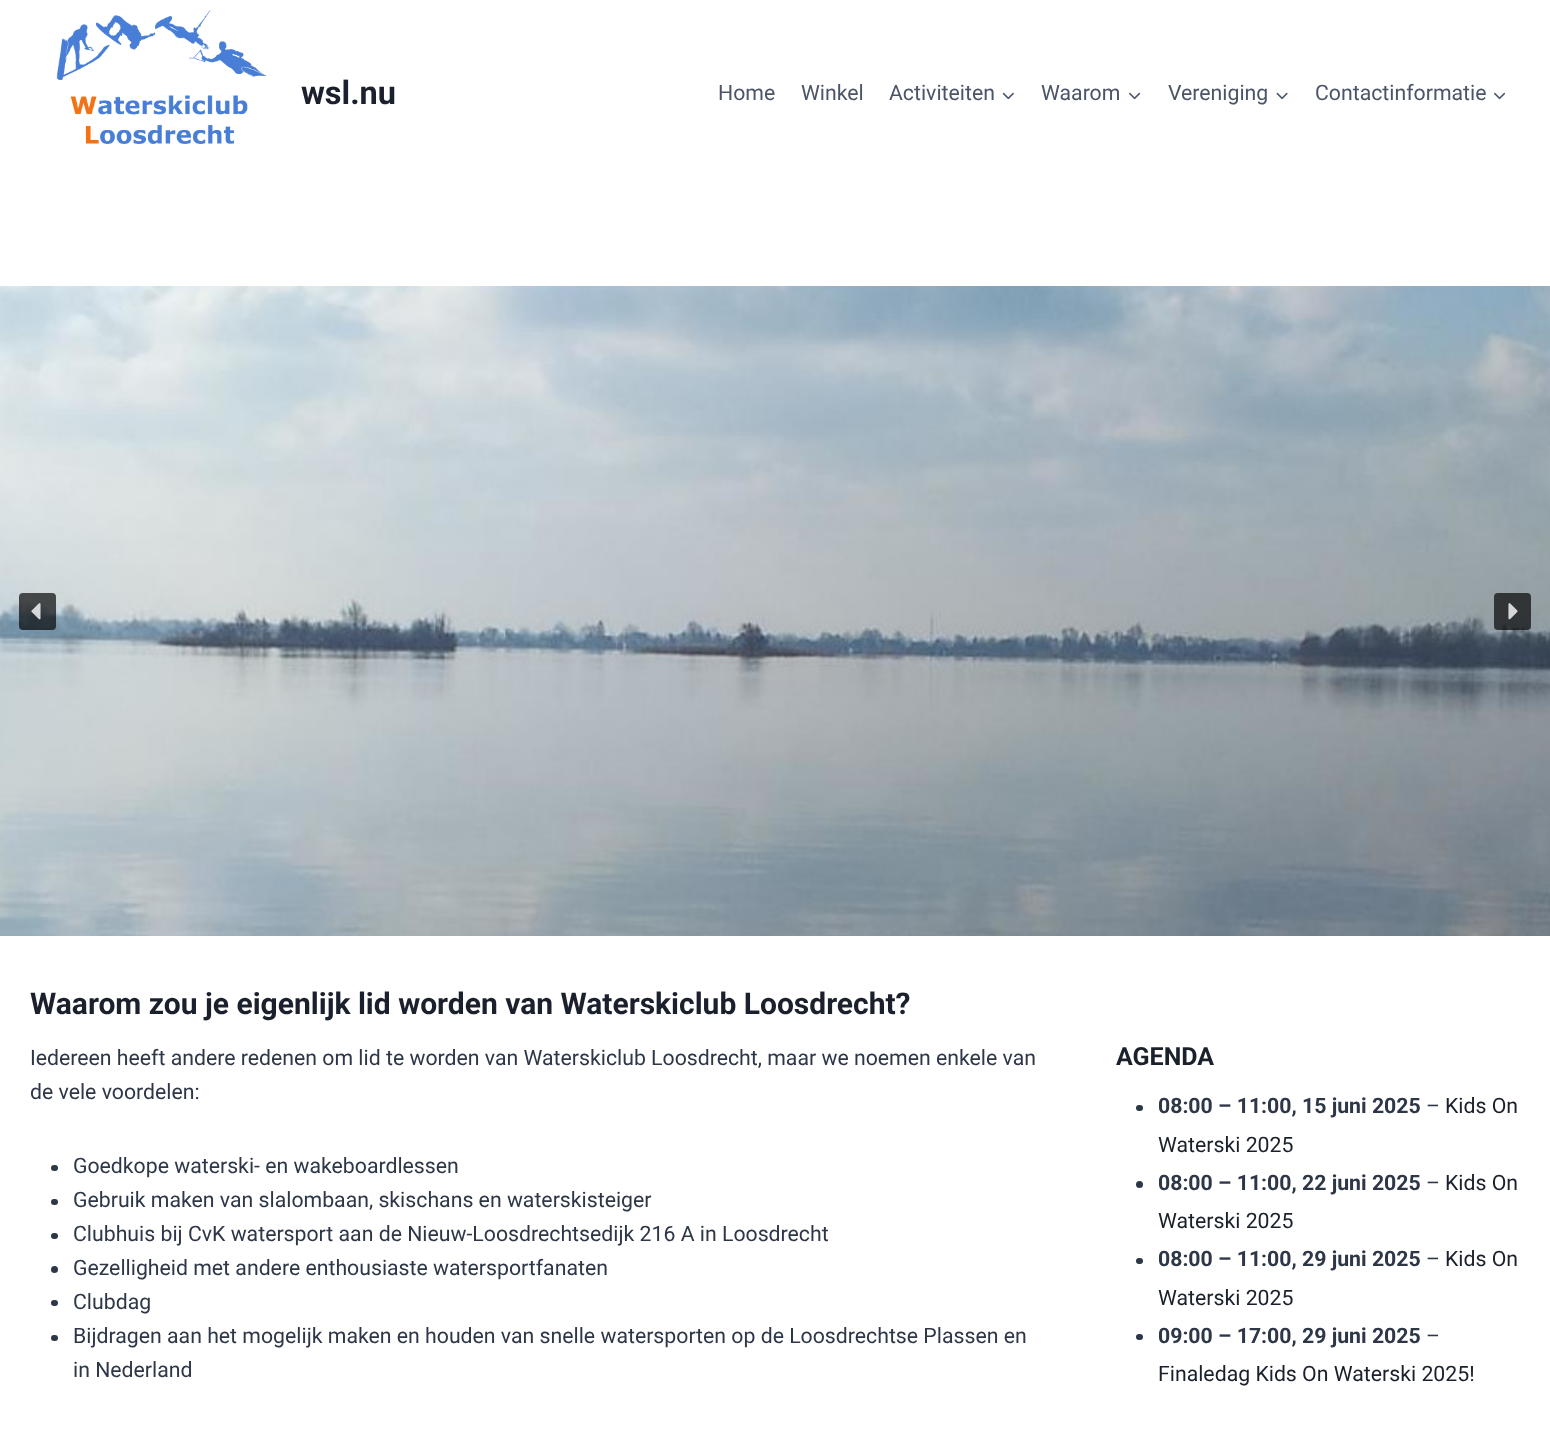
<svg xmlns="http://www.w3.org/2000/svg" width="1550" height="1446">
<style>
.a{font:bold 32.5px Roboto;fill:#1a202c}
.b{font:21.25px Roboto;fill:#4a5568}
.c{font:bold 30px Roboto;fill:#1a202c}
.d{font:21.25px Roboto;fill:#2d3748}
.e{font:bold 25px Roboto;fill:#1a202c}
.f{font:bold 21.25px Roboto;fill:#2d3748}
.g{font:21.25px Roboto;fill:#1a202c}
</style>
<rect width="100%" height="100%" fill="#fff"/>
<image href="1.png" x="56" y="10" width="211" height="134"/>
<image href="2.png" x="1002" y="92" width="12" height="8"/>
<image href="3.png" x="1129" y="92" width="12" height="8"/>
<image href="4.png" x="1276" y="92" width="12" height="8"/>
<image href="3.png" x="1494" y="92" width="12" height="8"/>
<image href="5.png" x="0" y="286" width="1550" height="650"/>
<rect fill="#000000ab" x="19" y="593" width="37" height="37" rx="4"/>
<image href="6.png" x="31" y="603" width="10" height="17"/>
<rect fill="#000000ab" x="1494" y="593" width="37" height="37" rx="4"/>
<image href="7.png" x="1508" y="603" width="10" height="17"/>
<rect fill="#2d3748" x="51" y="1165" width="7" height="6" rx="3"/>
<rect fill="#2d3748" x="51" y="1199" width="7" height="6" rx="3"/>
<rect fill="#2d3748" x="51" y="1233" width="7" height="6" rx="3"/>
<circle fill="#2d3748" cx="54.5" cy="1269.5" r="3.5"/>
<rect fill="#2d3748" x="51" y="1300" width="7" height="6" rx="3"/>
<rect fill="#2d3748" x="51" y="1335" width="7" height="6" rx="3"/>
<rect fill="#2d3748" x="1136" y="1105" width="7" height="6" rx="3"/>
<circle fill="#2d3748" cx="1139.5" cy="1184.5" r="3.5"/>
<rect fill="#2d3748" x="1136" y="1258" width="7" height="6" rx="3"/>
<rect fill="#2d3748" x="1136" y="1334" width="7" height="6" rx="3"/>
<text class="a" x="301" y="104">wsl.nu</text>
<text class="b" x="718" y="100">Home</text>
<text class="b" x="801" y="100">Winkel</text>
<text class="b" x="889" y="100">Activiteiten</text>
<text class="b" x="1041" y="100">Waarom</text>
<text class="b" x="1168" y="100">Vereniging</text>
<text class="b" x="1315" y="100">Contactinformatie</text>
<text class="c" x="30" y="1014">Waarom zou je eigenlijk lid worden van Waterskiclub Loosdrecht?</text>
<text class="d" x="30" y="1065">Iedereen heeft andere redenen om lid te worden van Waterskiclub Loosdrecht, maar we noemen enkele van</text>
<text class="d" x="30" y="1099">de vele voordelen:</text>
<text class="d" x="73" y="1173">Goedkope waterski- en wakeboardlessen</text>
<text class="d" x="73" y="1207">Gebruik maken van slalombaan, skischans en waterskisteiger</text>
<text class="d" x="73" y="1241">Clubhuis bij CvK watersport aan de Nieuw-Loosdrechtsedijk 216 A in Loosdrecht</text>
<text class="d" x="73" y="1275">Gezelligheid met andere enthousiaste watersportfanaten</text>
<text class="d" x="73" y="1309">Clubdag</text>
<text class="d" x="73" y="1343">Bijdragen aan het mogelijk maken en houden van snelle watersporten op de Loosdrechtse Plassen en</text>
<text class="d" x="73" y="1377">in Nederland</text>
<text class="e" x="1116" y="1065">AGENDA</text>
<text class="f" x="1158" y="1113">08:00 – 11:00, 15 juni 2025</text>
<text class="d" x="1426" y="1113">–</text>
<text class="g" x="1445" y="1113">Kids On</text>
<text class="g" x="1158" y="1152">Waterski 2025</text>
<text class="f" x="1158" y="1190">08:00 – 11:00, 22 juni 2025</text>
<text class="d" x="1426" y="1190">–</text>
<text class="g" x="1445" y="1190">Kids On</text>
<text class="g" x="1158" y="1228">Waterski 2025</text>
<text class="f" x="1158" y="1266">08:00 – 11:00, 29 juni 2025</text>
<text class="d" x="1426" y="1266">–</text>
<text class="g" x="1445" y="1266">Kids On</text>
<text class="g" x="1158" y="1305">Waterski 2025</text>
<text class="f" x="1158" y="1343">09:00 – 17:00, 29 juni 2025</text>
<text class="d" x="1426" y="1343">–</text>
<text class="g" x="1158" y="1381">Finaledag Kids On Waterski 2025!</text>
</svg>
